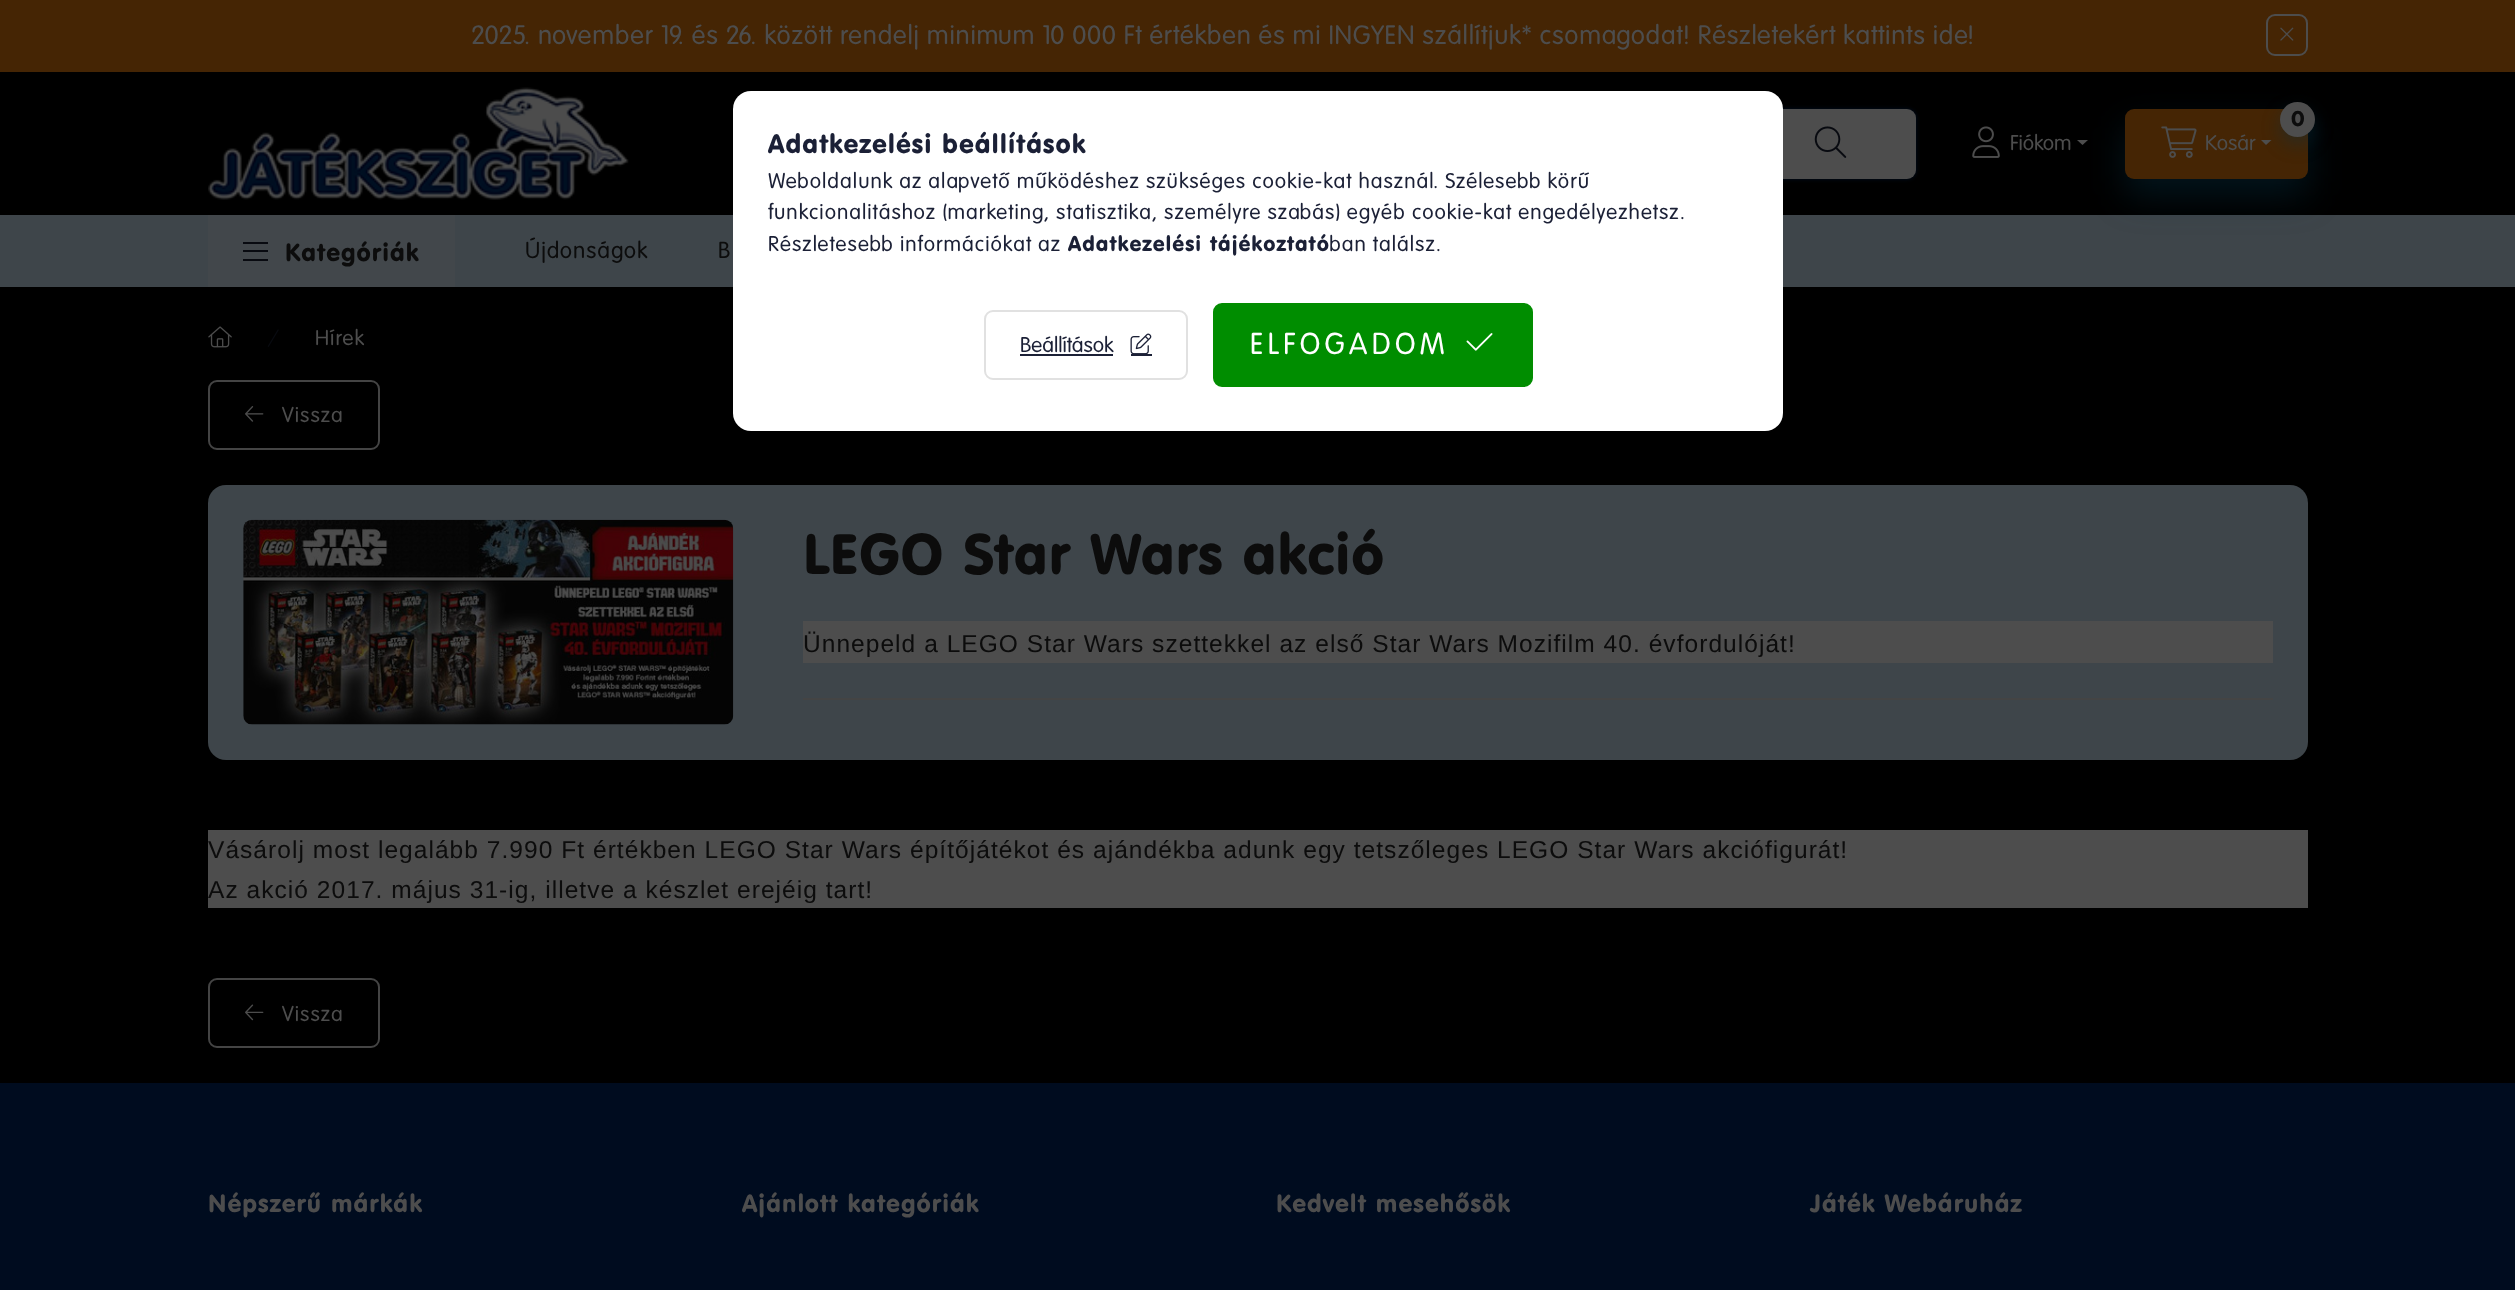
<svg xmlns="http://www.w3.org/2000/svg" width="2515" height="1290">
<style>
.a{font:26.25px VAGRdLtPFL;letter-spacing:0.79px;fill:#4d4d4d}
.b{font:21px VAGRdLtPFL;fill:#4d4d4d}
.c{font:21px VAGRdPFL;fill:#0c0c0c}
.d{font:24.5px VAGRdPFL;letter-spacing:1.05px;fill:#0c0c0c}
.e{font:22.75px VAGRdLtPFL;letter-spacing:1.05px;fill:#0c0c0c}
.f{font:21px VAGRdLtPFL;letter-spacing:1.05px;fill:#4d4d4d}
.g{font:56px VAGRdPFL;letter-spacing:1.05px;fill:#0c0c0c}
.h{font:24.5px Liberation Sans;letter-spacing:1.05px;fill:#0c0c0c}
.i{font:24.5px VAGRdPFL;letter-spacing:1.05px;fill:#4d4d4d}
.j{font:26.25px VAGRdPFL;letter-spacing:1.05px;fill:#1b2036}
.k{font:21px VAGRdLtPFL;letter-spacing:1.05px;fill:#1b2036}
.l{font:21px VAGRdPFL;letter-spacing:1.05px;fill:#1b2036}
.m{font:21px VAGRdLtPFL;fill:#1b2036}
.n{font:29.75px VAGRdLtPFL;letter-spacing:4.5px;fill:#fff}
</style>
<rect width="100%" height="100%" fill="#000"/>
<path fill="#452504" d="M0 0h2515v72H0z"/>
<rect fill="none" stroke="#4d4d4d" stroke-width="2" x="2267" y="15" width="40" height="40" rx="8"/>
<image href="1.png" x="2280" y="27" width="14" height="14"/>
<image href="2.png" x="208" y="87" width="421" height="113"/>
<rect fill="#000e21" filter="blur(2px)" x="1029" y="109" width="887" height="70" rx="9"/>
<rect fill="#4d4d4d" x="1029" y="109" width="887" height="70" rx="9"/>
<image href="3.png" x="1814" y="126" width="33" height="32"/>
<image href="4.png" x="1972" y="126" width="28" height="32"/>
<path fill="#3e454a" d="M0 215h2515v72H0z"/>
<rect fill="#04324766" filter="blur(17.5px)" x="2125" y="126" width="183" height="70" rx="9"/>
<path fill="#4d4d4d" d="M2077 140h11l-5.5 5z"/>
<rect fill="#452504" x="2125" y="109" width="183" height="70" rx="9"/>
<rect fill="#04324766" filter="blur(9px)" x="2280" y="110" width="35" height="35" rx="17.5"/>
<circle fill="#4d4d4d" cx="2297.5" cy="119.5" r="17.5"/>
<image href="5.png" x="2161" y="126" width="36" height="32"/>
<path fill="#4d4d4d" d="M2261 140h10.5l-5.5 5z"/>
<path fill="#42474b" d="M208 215h247v72H208z"/>
<path fill="#080a10" d="M243 242h25v2H243z"/>
<path fill="#080a10" d="M243 250h25v2H243z"/>
<path fill="#080a10" d="M243 259h25v2H243z"/>
<image href="6.png" x="208" y="326" width="24" height="22"/>
<image href="7.png" x="267" y="329" width="12" height="18"/>
<rect fill="none" stroke="#444" stroke-width="2" x="209" y="381" width="170" height="68" rx="8"/>
<image href="8.png" x="245" y="406" width="19" height="16"/>
<rect fill="#3e454a" x="208" y="485" width="2100" height="275" rx="18"/>
<image href="9.png" x="243" y="519" width="491" height="206"/>
<path fill="#4d4d4d" d="M803 621h1470v42H803z"/>
<path fill="#444" d="M803 698h1470v2H803z"/>
<path fill="#4d4d4d" d="M208 830h2100v78H208z"/>
<rect fill="none" stroke="#444" stroke-width="2" x="209" y="979" width="170" height="68" rx="8"/>
<image href="10.png" x="245" y="1004" width="19" height="17"/>
<path fill="#000c1f" d="M0 1083h2515v207H0z"/>
<rect fill="#fff" x="733" y="91" width="1050" height="340" rx="18"/>
<rect fill="none" stroke="#e1e1e1" stroke-width="2" x="985" y="311" width="202" height="68" rx="8"/>
<path fill="#1b2036" d="M1020 354h93v2H1020z"/>
<image href="11.png" x="1130" y="333" width="22" height="21"/>
<path fill="#1b2036" d="M1131 354h21v2H1131z"/>
<rect fill="#008d00" stroke="#028d00" stroke-width="2" x="1214" y="304" width="318" height="82" rx="8"/>
<image href="12.png" x="1466" y="333" width="27" height="18"/>
<text class="a" x="471" y="44">2025. november 19. és 26. között rendelj minimum 10 000 Ft értékben és mi INGYEN szállítjuk* csomagodat! Részletekért kattints ide!</text>
<text class="b" x="2010" y="150">Fiókom</text>
<text class="c" x="2291" y="126">0</text>
<text class="b" x="2205" y="150">Kosár</text>
<text class="d" x="285" y="261">Kategóriák</text>
<text class="e" x="525" y="258">Újdonságok</text>
<text class="e" x="718" y="258">B</text>
<text class="f" x="315" y="345">Hírek</text>
<text class="f" x="282" y="422">Vissza</text>
<text class="g" x="803" y="574">LEGO Star Wars akció</text>
<text class="h" x="803" y="652">Ünnepeld a LEGO Star Wars szettekkel az első Star Wars Mozifilm 40. évfordulóját!</text>
<text class="h" x="208" y="858">Vásárolj most legalább 7.990 Ft értékben LEGO Star Wars építőjátékot és ajándékba adunk egy tetszőleges LEGO Star Wars akciófigurát!</text>
<text class="h" x="208" y="898">Az akció 2017. május 31-ig, illetve a készlet erejéig tart!</text>
<text class="f" x="282" y="1021">Vissza</text>
<text class="i" x="208" y="1212">Népszerű márkák</text>
<text class="i" x="742" y="1212">Ajánlott kategóriák</text>
<text class="i" x="1276" y="1212">Kedvelt mesehősök</text>
<text class="i" x="1810" y="1212">Játék Webáruház</text>
<text class="j" x="768" y="153">Adatkezelési beállítások</text>
<text class="k" x="768" y="188">Weboldalunk az alapvető működéshez szükséges cookie-kat használ. Szélesebb körű</text>
<text class="k" x="768" y="219">funkcionalitáshoz (marketing, statisztika, személyre szabás) egyéb cookie-kat engedélyezhetsz.</text>
<text class="k" x="768" y="251">Részletesebb információkat az</text>
<text class="l" x="1068" y="251">Adatkezelési tájékoztató</text>
<text class="k" x="1329" y="251">ban találsz.</text>
<text class="m" x="1020" y="352">Beállítások</text>
<text class="n" x="1250" y="354">ELFOGADOM</text>
</svg>
